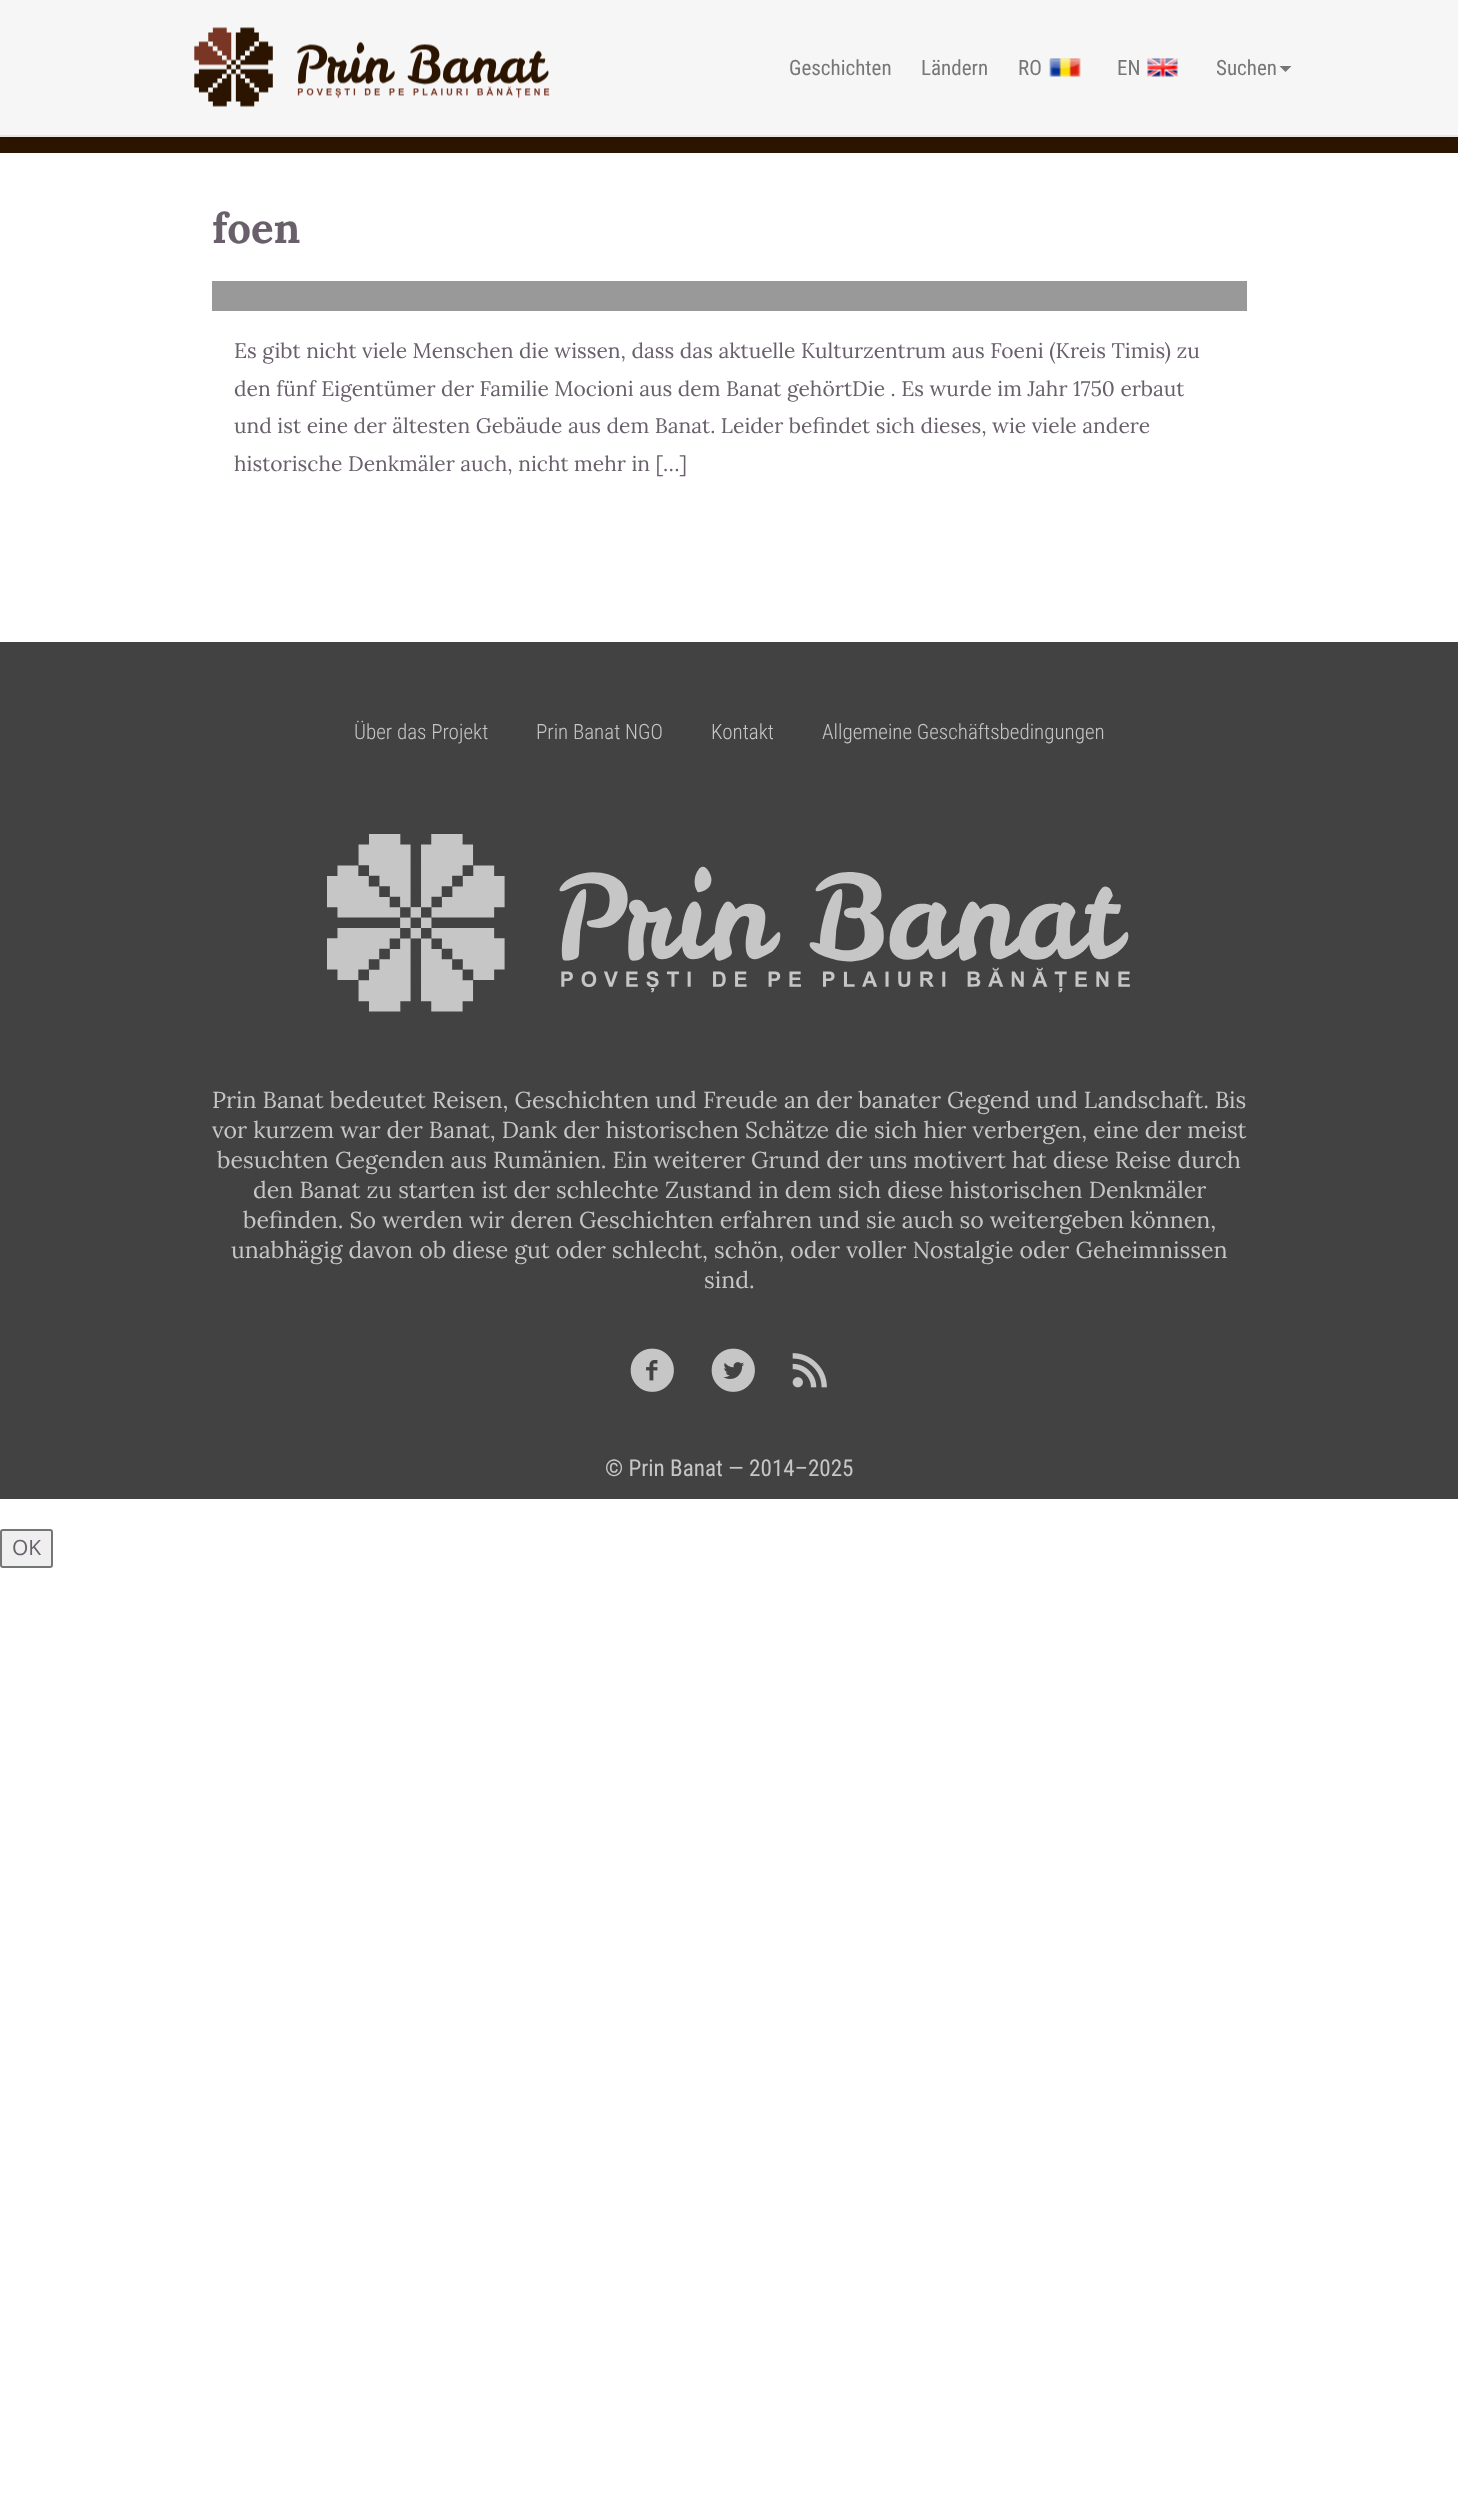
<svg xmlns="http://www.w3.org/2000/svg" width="1458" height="2506">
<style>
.a{font:21px Roboto Condensed;fill:#777}
.b{font:bold 42px Lora;fill:#69606b}
.c{font:21px Lora;fill:#69606b}
.d{font:300 21px Roboto Condensed;fill:#c6c6c6}
.e{font:23.1px Lora;fill:#c6c6c6}
.f{font:23.1px Roboto Condensed;fill:#c6c6c6}
.g{font:21px Open Sans;fill:#69606b}
</style>
<rect width="100%" height="100%" fill="#fff"/>
<path fill="#2c1500" d="M0 137h1458v16H0z"/>
<path fill="#00000012" filter="blur(4px)" d="M0 2h1458v136H0z"/>
<path fill="#f6f6f6" d="M0 0h1458v135H0z"/>
<path fill="#e7e7e7" d="M0 135h1458v2H0z"/>
<image href="1.png" x="194" y="27" width="356" height="80"/>
<image href="2.png" x="1049" y="58" width="32" height="19"/>
<image href="3.png" x="1147" y="58" width="31" height="19"/>
<path fill="#777" d="M1279.5 66h12l-6 6z"/>
<path fill="#999" d="M212 281h1035v30H212z"/>
<path fill="#424242" d="M0 642h1458v857H0z"/>
<image href="4.png" x="327" y="834" width="803" height="178"/>
<image href="5.png" x="630" y="1348" width="44" height="44"/>
<image href="6.png" x="711" y="1348" width="44" height="44"/>
<image href="7.png" x="792" y="1353" width="35" height="35"/>
<rect fill="#efefef" stroke="#767676" stroke-width="2" x="1" y="1530" width="51" height="37" rx="2"/>
<text class="a" x="789" y="75">Geschichten</text>
<text class="a" x="921" y="75">Ländern</text>
<text class="a" x="1018" y="75">RO</text>
<text class="a" x="1117" y="75">EN</text>
<text class="a" x="1216" y="75">Suchen</text>
<text class="b" x="212" y="243">foen</text>
<text class="c" x="234" y="358">Es gibt nicht viele Menschen die wissen, dass das aktuelle Kulturzentrum aus Foeni (Kreis Timis) zu</text>
<text class="c" x="234" y="396">den fünf Eigentümer der Familie Mocioni aus dem Banat gehörtDie . Es wurde im Jahr 1750 erbaut</text>
<text class="c" x="234" y="433">und ist eine der ältesten Gebäude aus dem Banat. Leider befindet sich dieses, wie viele andere</text>
<text class="c" x="234" y="471">historische Denkmäler auch, nicht mehr in […]</text>
<text class="d" x="354" y="739">Über das Projekt</text>
<text class="d" x="536" y="739">Prin Banat NGO</text>
<text class="d" x="711" y="739">Kontakt</text>
<text class="d" x="822" y="739">Allgemeine Geschäftsbedingungen</text>
<text class="e" x="212" y="1108">Prin Banat bedeutet Reisen, Geschichten und Freude an der banater Gegend und Landschaft. Bis</text>
<text class="e" x="212" y="1138">vor kurzem war der Banat, Dank der historischen Schätze die sich hier verbergen, eine der meist</text>
<text class="e" x="217" y="1168">besuchten Gegenden aus Rumänien. Ein weiterer Grund der uns motivert hat diese Reise durch</text>
<text class="e" x="253" y="1198">den Banat zu starten ist der schlechte Zustand in dem sich diese historischen Denkmäler</text>
<text class="e" x="243" y="1228">befinden. So werden wir deren Geschichten erfahren und sie auch so weitergeben können,</text>
<text class="e" x="231" y="1258">unabhägig davon ob diese gut oder schlecht, schön, oder voller Nostalgie oder Geheimnissen</text>
<text class="e" x="704" y="1288">sind.</text>
<text class="f" x="605" y="1476">© Prin Banat — 2014–2025</text>
<text class="g" x="12" y="1555">OK</text>
</svg>
